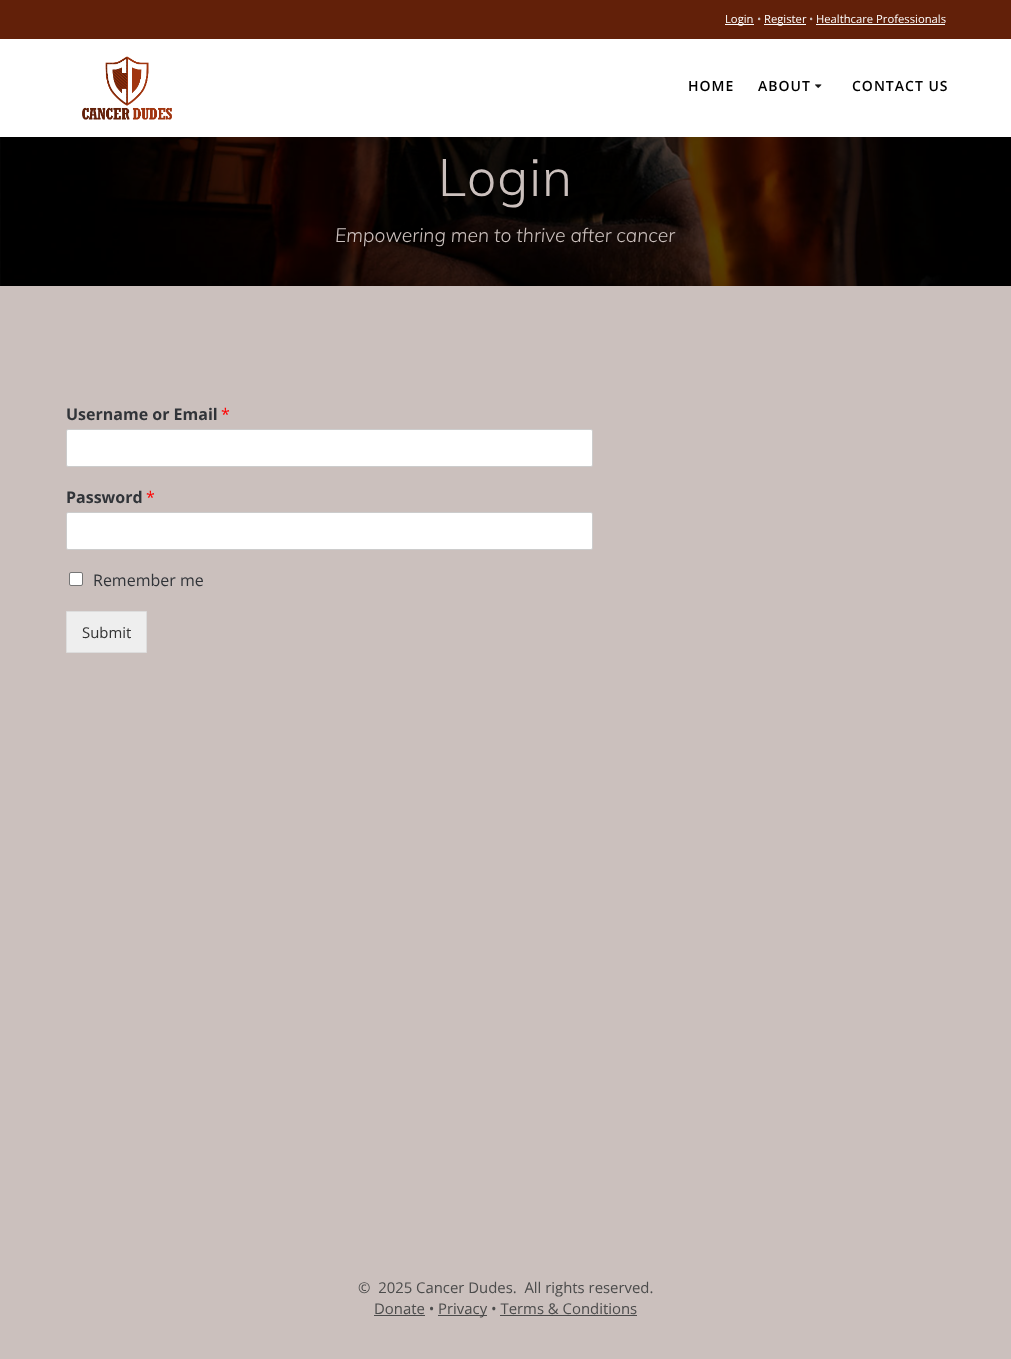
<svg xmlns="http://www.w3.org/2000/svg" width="1011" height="1359">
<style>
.a{font:11.25px Open Sans;fill:#fff}
.b{font:11.25px Open Sans;fill:#cbc0bd}
.c{font:600 14px Open Sans;letter-spacing:1px;fill:#000}
.d{font:300 52px Muli;letter-spacing:1px;fill:#cbc0bd}
.e{font:italic 300 19.3px Muli;fill:#cbc0bd}
.f{font:bold 16px Open Sans;fill:#313439}
.g{font:16px Open Sans;fill:#f00}
.h{font:16px Open Sans;fill:#313439}
.i{font:14.9px Open Sans;fill:#333}
.j{font:14.9px Open Sans;fill:#4b4b4b}
</style>
<rect width="100%" height="100%" fill="#fff"/>
<path fill="#622009" d="M0 0h1011v39H0z"/>
<path fill="#fff" d="M725 24h29v1H725z"/>
<path fill="#fff" d="M764 24h42v1H764z"/>
<path fill="#fff" d="M816 24h129v1H816z"/>
<image href="1.png" x="82" y="56" width="90" height="64"/>
<image href="2.png" x="815" y="84" width="7" height="4"/>
<image href="3.png" x="0" y="137" width="1011" height="149"/>
<path fill="#cbc0bd" d="M0 286h1011v1073H0z"/>
<rect fill="#fff" stroke="#ccc" x="66.5" y="429.5" width="526" height="37" rx="1.5"/>
<rect fill="#fff" stroke="#ccc" x="66.5" y="512.5" width="526" height="37" rx="1.5"/>
<rect fill="#fff" stroke="#767676" x="69.5" y="572.5" width="13" height="13" rx="1.5"/>
<path fill="#eee" stroke="#ddd" d="M66.5 611.5h80v41H66.5z"/>
<path fill="#4b4b4b" d="M374 1315h51v1H374z"/>
<path fill="#4b4b4b" d="M438 1315h49v1H438z"/>
<path fill="#4b4b4b" d="M500 1315h137v1H500z"/>
<text class="a" x="725" y="23">Login</text>
<text class="b" x="757" y="23">•</text>
<text class="a" x="764" y="23">Register</text>
<text class="b" x="809" y="23">•</text>
<text class="a" x="816" y="23">Healthcare Professionals</text>
<text class="c" x="688" y="91">HOME</text>
<text class="c" x="758" y="91">ABOUT</text>
<text class="c" x="852" y="91">CONTACT US</text>
<text class="d" x="438" y="196">Login</text>
<text class="e" x="335" y="242">Empowering men to thrive after cancer</text>
<text class="f" x="66" y="420">Username or Email</text>
<text class="g" x="221" y="420">*</text>
<text class="f" x="66" y="503">Password</text>
<text class="g" x="146" y="503">*</text>
<text class="h" x="93" y="586">Remember me</text>
<text class="i" x="82" y="638">Submit</text>
<text class="j" xml:space="preserve" x="358" y="1293">©  2025 Cancer Dudes.  All rights reserved.</text>
<text class="j" x="374" y="1314">Donate •</text>
<text class="j" x="438" y="1314">Privacy • Terms &amp; Conditions</text>
</svg>
